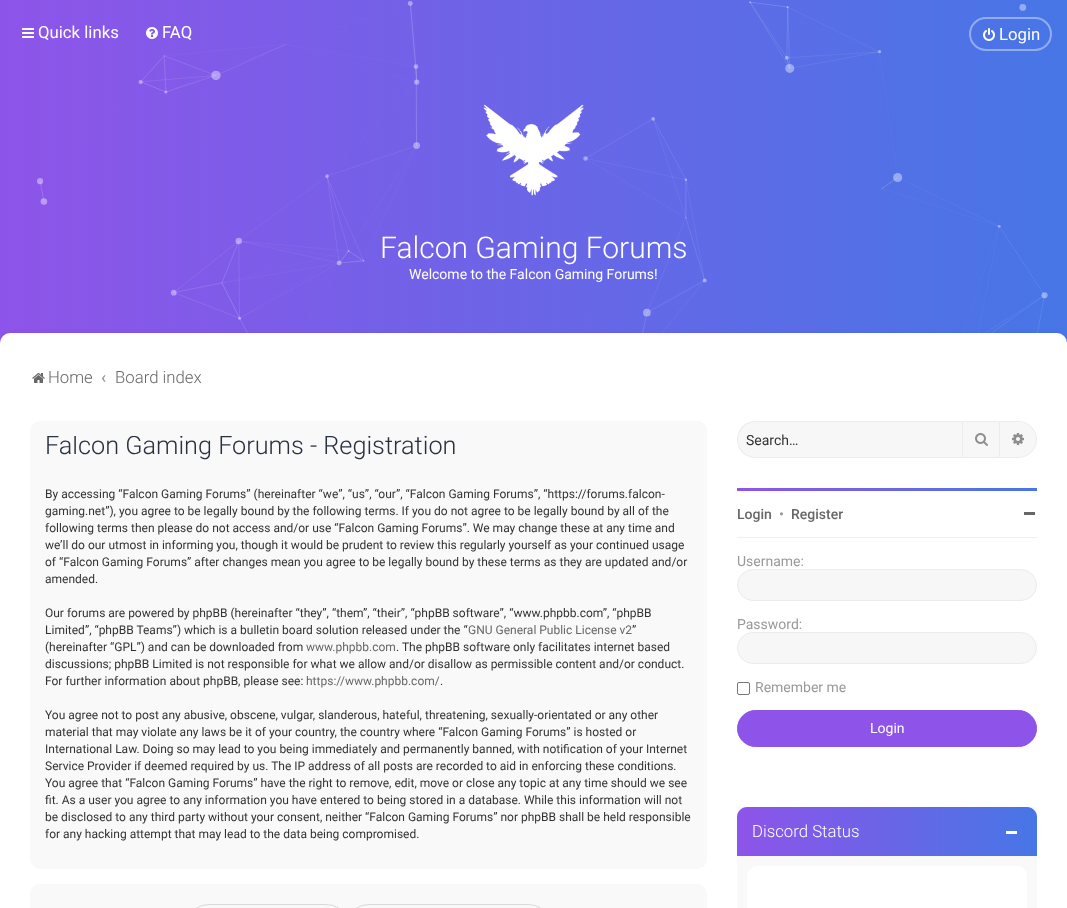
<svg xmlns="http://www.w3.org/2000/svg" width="1067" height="908">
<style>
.a{font:16.75px Roboto;fill:#fff}
.b{font:300 30px Roboto;fill:#fff}
.c{font:14px Roboto;fill:#fff}
.d{font:300 16.75px Roboto;fill:#676767}
.e{font:500 16.75px Roboto;fill:#999}
.f{font:300 25.25px Roboto;fill:#28313f}
.g{font:12px Roboto;fill:#333}
.h{font:12px Roboto;fill:#676767}
.i{font:14px Roboto;fill:#333}
.j{font:500 14px Roboto;fill:#676767}
.k{font:500 14px Roboto;fill:#999}
.l{font:14px Roboto;fill:#999}
.m{font:300 16.75px Roboto;fill:#fff}
</style>
<defs>
<linearGradient id="g1" gradientUnits="userSpaceOnUse" x1="0" y1="192" x2="1067" y2="191"><stop offset="0" stop-color="#8e54e9"/><stop offset="1" stop-color="#4776e6"/></linearGradient>
<linearGradient id="g2" gradientUnits="userSpaceOnUse" x1="737" y1="490" x2="1037" y2="490"><stop offset="0" stop-color="#8e54e9"/><stop offset="1" stop-color="#4776e6"/></linearGradient>
<linearGradient id="g3" gradientUnits="userSpaceOnUse" x1="737" y1="832" x2="1037" y2="832"><stop offset="0" stop-color="#8e54e9"/><stop offset="1" stop-color="#4776e6"/></linearGradient>
<clipPath id="clip1"><path d="M45 436h647v418H45z"/></clipPath>
</defs>
<rect width="100%" height="100%" fill="#fff"/>
<path fill="url(#g1)" d="M0 0h1067v343H0z"/>
<image href="1.png" x="22" y="28" width="12" height="10"/>
<image href="4.png" x="37" y="1" width="1011" height="332"/>
<image href="2.png" x="146" y="27" width="12" height="12"/>
<rect fill="none" stroke="#ffffff66" stroke-width="2" x="970" y="18" width="81" height="32" rx="16"/>
<image href="3.png" x="983" y="28" width="12" height="13"/>
<image href="5.png" x="483" y="104" width="101" height="92"/>
<rect fill="#0000000d" filter="blur(2.5px)" y="333" width="1067" height="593" rx="10"/>
<rect fill="#fff" y="333" width="1067" height="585" rx="10"/>
<image href="6.png" x="32" y="373" width="13" height="10"/>
<rect fill="#f9f9f9" x="30" y="421" width="677" height="448" rx="10"/>
<rect fill="#f9f9f9" x="30" y="884" width="677" height="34" rx="10"/>
<rect fill="none" stroke="#d9d9d9" x="191.5" y="904.5" width="152" height="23" rx="18"/>
<rect fill="none" stroke="#d9d9d9" x="351.5" y="904.5" width="194" height="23" rx="18"/>
<path fill="#f7f7f7" d="M755.5 422h206.5v35h-206.5c-9.5 0-17.5-8-17.5-17.5c0-9.5 8-17.5 17.5-17.5z"/>
<path fill="#edecec" fill-rule="evenodd" d="M756 421h206v37h-206c-11 0-19-8-19-18c0-11 8-19 19-19zm0 1h206v35h-206c-10 0-18-8-18-17c0-10 8-18 18-18z"/>
<path fill="#f7f7f7" stroke="#edecec" d="M962.5 421.5h37v36H962.5z"/>
<image href="7.png" x="975" y="433" width="13" height="13"/>
<path fill="#f7f7f7" d="M1000 422h18.5c9.5 0 17.5 8 17.5 17.5c0 9.5-8 17.5-17.5 17.5h-18.5z"/>
<path fill="#edecec" fill-rule="evenodd" d="M1000 421h18.5c10 0 18.5 8.5 18.5 18.5c0 10-8.5 18.5-18.5 18.5h-18.5zm0 1h18.5c9.5 0 17.5 8 17.5 17.5c0 9.5-8 17.5-17.5 17.5h-18.5z"/>
<image href="8.png" x="1012" y="433" width="12" height="12"/>
<path fill="url(#g2)" d="M737 488h300v3H737z"/>
<path fill="#676767" d="M1024 512h11v3H1024z"/>
<path fill="#ecf0f1" d="M737 537h300v1H737z"/>
<rect fill="#f7f7f7" stroke="#edecec" x="737.5" y="569.5" width="299" height="31" rx="15.5"/>
<rect fill="#f7f7f7" stroke="#edecec" x="737.5" y="632.5" width="299" height="31" rx="15.5"/>
<rect fill="none" stroke="#767676" x="737.5" y="682.5" width="12" height="12" rx="1.5"/>
<rect fill="#8e54e9" stroke="#8e54e9" x="737.5" y="710.5" width="299" height="36" rx="18"/>
<path fill="#f9f9f9" d="M737 807h300v101H737z"/>
<path fill="url(#g3)" d="M747 807h280c5.5 0 10 4.5 10 10v39h-300v-39c0-5.5 4.5-10 10-10z"/>
<path fill="#fff" d="M1006 831h11v3H1006z"/>
<rect fill="#fff" x="747" y="866" width="280" height="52" rx="10"/>
<text class="a" x="38" y="38">Quick links</text>
<text class="a" x="162" y="38">FAQ</text>
<text class="a" x="999" y="40">Login</text>
<text class="b" x="380" y="258">Falcon Gaming Forums</text>
<text class="c" x="409" y="279">Welcome to the Falcon Gaming Forums!</text>
<text class="d" x="48" y="383">Home</text>
<text class="e" x="101" y="383">‹</text>
<text class="d" x="115" y="383">Board index</text>
<g clip-path="url(#clip1)">
<text class="f" x="45" y="454">Falcon Gaming Forums - Registration</text>
</g>
<text class="g" x="45" y="498">By accessing “Falcon Gaming Forums” (hereinafter “we”, “us”, “our”, “Falcon Gaming Forums”, “https://forums.falcon-</text>
<text class="g" x="45" y="515">gaming.net”), you agree to be legally bound by the following terms. If you do not agree to be legally bound by all of the</text>
<text class="g" x="45" y="532">following terms then please do not access and/or use “Falcon Gaming Forums”. We may change these at any time and</text>
<text class="g" x="45" y="549">we’ll do our utmost in informing you, though it would be prudent to review this regularly yourself as your continued usage</text>
<text class="g" x="45" y="566">of “Falcon Gaming Forums” after changes mean you agree to be legally bound by these terms as they are updated and/or</text>
<text class="g" x="45" y="583">amended.</text>
<text class="g" x="45" y="617">Our forums are powered by phpBB (hereinafter “they”, “them”, “their”, “phpBB software”, “www.phpbb.com”, “phpBB</text>
<text class="g" x="45" y="634">Limited”, “phpBB Teams”) which is a bulletin board solution released under the “</text>
<text class="h" x="468" y="634">GNU General Public License v2</text>
<text class="g" x="632" y="634">”</text>
<text class="g" x="45" y="651">(hereinafter “GPL”) and can be downloaded from</text>
<text class="h" x="306" y="651">www.phpbb.com</text>
<text class="g" x="396" y="651">. The phpBB software only facilitates internet based</text>
<text class="g" x="45" y="668">discussions; phpBB Limited is not responsible for what we allow and/or disallow as permissible content and/or conduct.</text>
<text class="g" x="45" y="685">For further information about phpBB, please see:</text>
<text class="h" x="306" y="685">https://www.phpbb.com/</text>
<text class="g" x="440" y="685">.</text>
<text class="g" x="45" y="719">You agree not to post any abusive, obscene, vulgar, slanderous, hateful, threatening, sexually-orientated or any other</text>
<text class="g" x="45" y="736">material that may violate any laws be it of your country, the country where “Falcon Gaming Forums” is hosted or</text>
<text class="g" x="45" y="753">International Law. Doing so may lead to you being immediately and permanently banned, with notification of your Internet</text>
<text class="g" x="45" y="770">Service Provider if deemed required by us. The IP address of all posts are recorded to aid in enforcing these conditions.</text>
<text class="g" x="45" y="787">You agree that “Falcon Gaming Forums” have the right to remove, edit, move or close any topic at any time should we see</text>
<text class="g" x="45" y="804">fit. As a user you agree to any information you have entered to being stored in a database. While this information will not</text>
<text class="g" x="45" y="821">be disclosed to any third party without your consent, neither “Falcon Gaming Forums” nor phpBB shall be held responsible</text>
<text class="g" x="45" y="838">for any hacking attempt that may lead to the data being compromised.</text>
<text class="i" x="746" y="445">Search…</text>
<text class="j" x="737" y="519">Login</text>
<text class="k" x="779" y="519">•</text>
<text class="j" x="791" y="519">Register</text>
<text class="l" x="737" y="566">Username:</text>
<text class="l" x="737" y="629">Password:</text>
<text class="l" x="755" y="692">Remember me</text>
<text class="c" x="870" y="733">Login</text>
<text class="m" x="752" y="837">Discord Status</text>
</svg>
